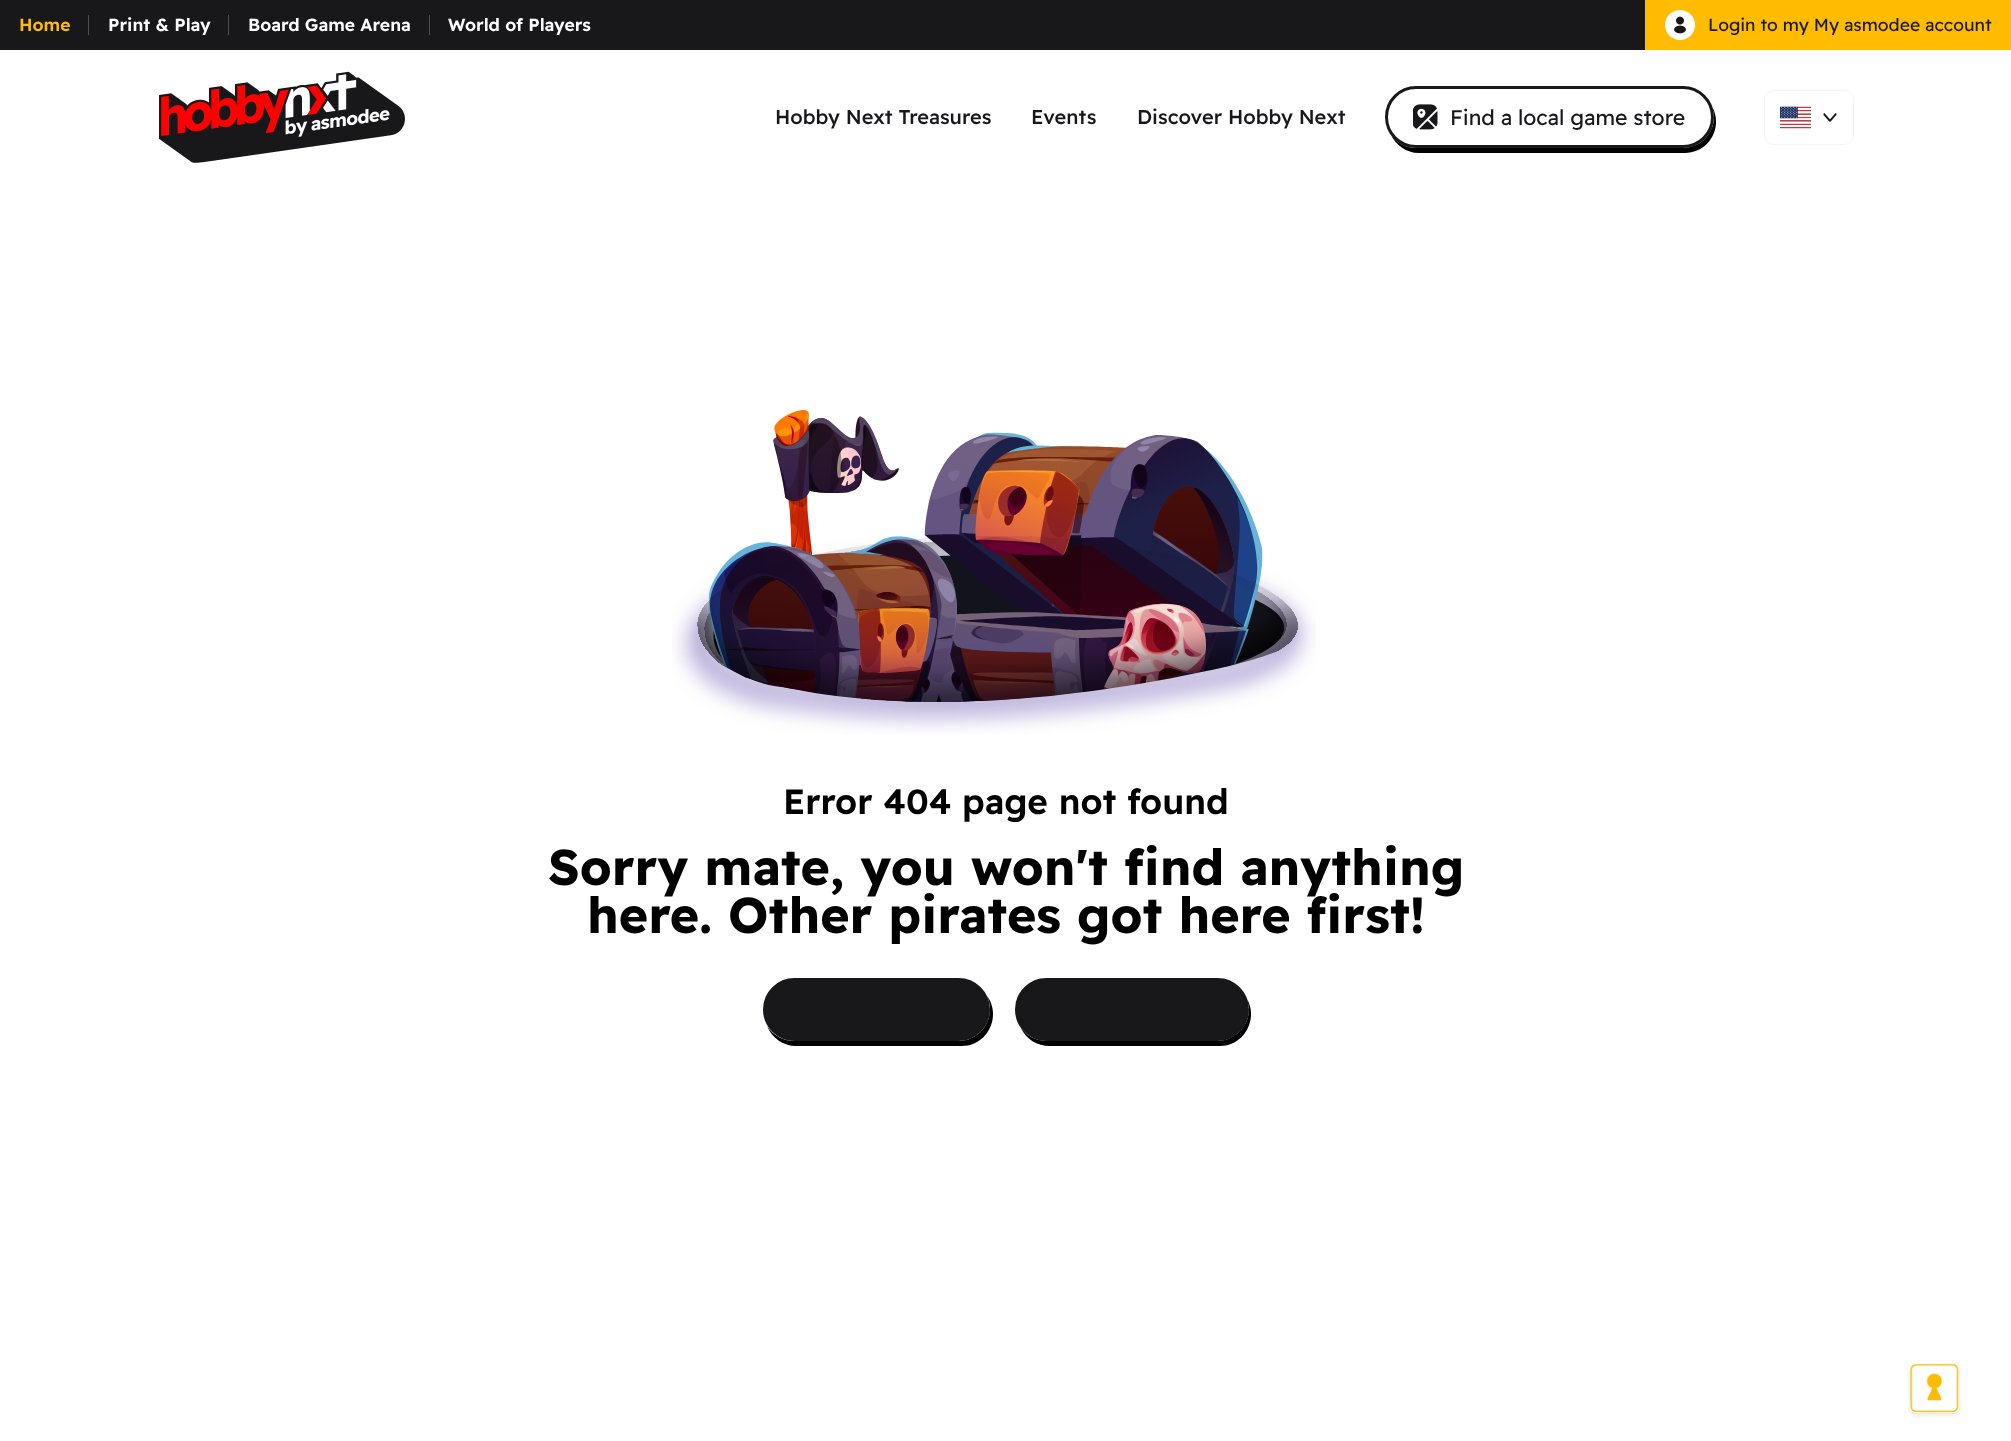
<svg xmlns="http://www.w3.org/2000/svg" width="2011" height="1441">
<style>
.a{font:600 17.5px Readex Pro;fill:#ffbc00}
.b{font:600 17.5px Readex Pro;fill:#fff}
.c{font:17.5px Readex Pro;fill:#18181b}
.d{font:500 20px Readex Pro;fill:#18181b}
.e{font:21.25px Readex Pro;fill:#18181b}
.f{font:600 35px Readex Pro;fill:#000}
.g{font:bold 50px Readex Pro;fill:#000}
</style>
<rect width="100%" height="100%" fill="#fff"/>
<path fill="#18181b" d="M0 0h1645v50H0z"/>
<path fill="#4f4f52" d="M88 15h1v20H88z"/>
<path fill="#4f4f52" d="M228 15h1v20H228z"/>
<path fill="#4f4f52" d="M429 15h1v20H429z"/>
<path fill="#ffbc00" d="M1645 0h366v50H1645z"/>
<image href="1.png" x="1665" y="10" width="30" height="30"/>
<image href="2.png" x="159" y="71" width="246" height="92"/>
<path fill="#000" d="M1391 135c5 10 15 18 28 18h266c17 0 31-14 31-31c0-5-1-11-4-15c1 3 2 6 2 10c0 17-14 31-31 31h-267c-11 0-20-6-25-13z"/>
<rect fill="#fff" stroke="#18181b" stroke-width="3" x="1386.5" y="87.5" width="326" height="59" rx="29.5"/>
<image href="3.png" x="1413" y="104" width="25" height="26"/>
<rect fill="none" stroke="#f4f4f5" x="1764.5" y="90.5" width="89" height="54" rx="9.5"/>
<image href="4.png" x="1780" y="106" width="31" height="23"/>
<image href="5.png" x="1823" y="113" width="14" height="9"/>
<image href="6.png" x="672" y="410" width="644" height="324"/>
<path fill="#000" d="M767 1026c5 12 16 20 29 20h166c17 0 31-14 31-32c0-6-2-13-6-18c2 4 3 9 3 13c0 18-14 32-32 32h-164c-11 0-21-6-27-15z"/>
<rect fill="#18181b" stroke="#18181b" stroke-width="3" x="764.5" y="979.5" width="224" height="60" rx="30"/>
<path fill="#000" d="M1021 1028c5 11 16 18 29 18h170c17 0 31-14 31-32c0-5-1-10-4-15c1 4 2 7 2 10c0 18-15 32-32 32h-170c-11 0-20-5-26-13z"/>
<rect fill="#18181b" stroke="#18181b" stroke-width="3" x="1016.5" y="979.5" width="231" height="60" rx="30"/>
<rect fill="#0000001a" filter="blur(2px)" x="1910" y="1366" width="49" height="49" rx="5"/>
<rect fill="#fff" x="1910" y="1364" width="49" height="49" rx="5"/>
<image href="7.png" x="1910" y="1363" width="49" height="50"/>
<text class="a" x="19" y="31">Home</text>
<text class="b" x="108" y="31">Print &amp; Play</text>
<text class="b" x="248" y="31">Board Game Arena</text>
<text class="b" x="448" y="31">World of Players</text>
<text class="c" x="1708" y="31">Login to my My asmodee account</text>
<text class="d" x="775" y="124">Hobby Next Treasures</text>
<text class="d" x="1031" y="124">Events</text>
<text class="d" x="1137" y="124">Discover Hobby Next</text>
<text class="e" x="1450" y="125">Find a local game store</text>
<text class="f" x="783" y="814">Error 404 page not found</text>
<text class="g" x="548" y="885">Sorry mate, you won't find anything</text>
<text class="g" x="587" y="933">here. Other pirates got here first!</text>
</svg>
